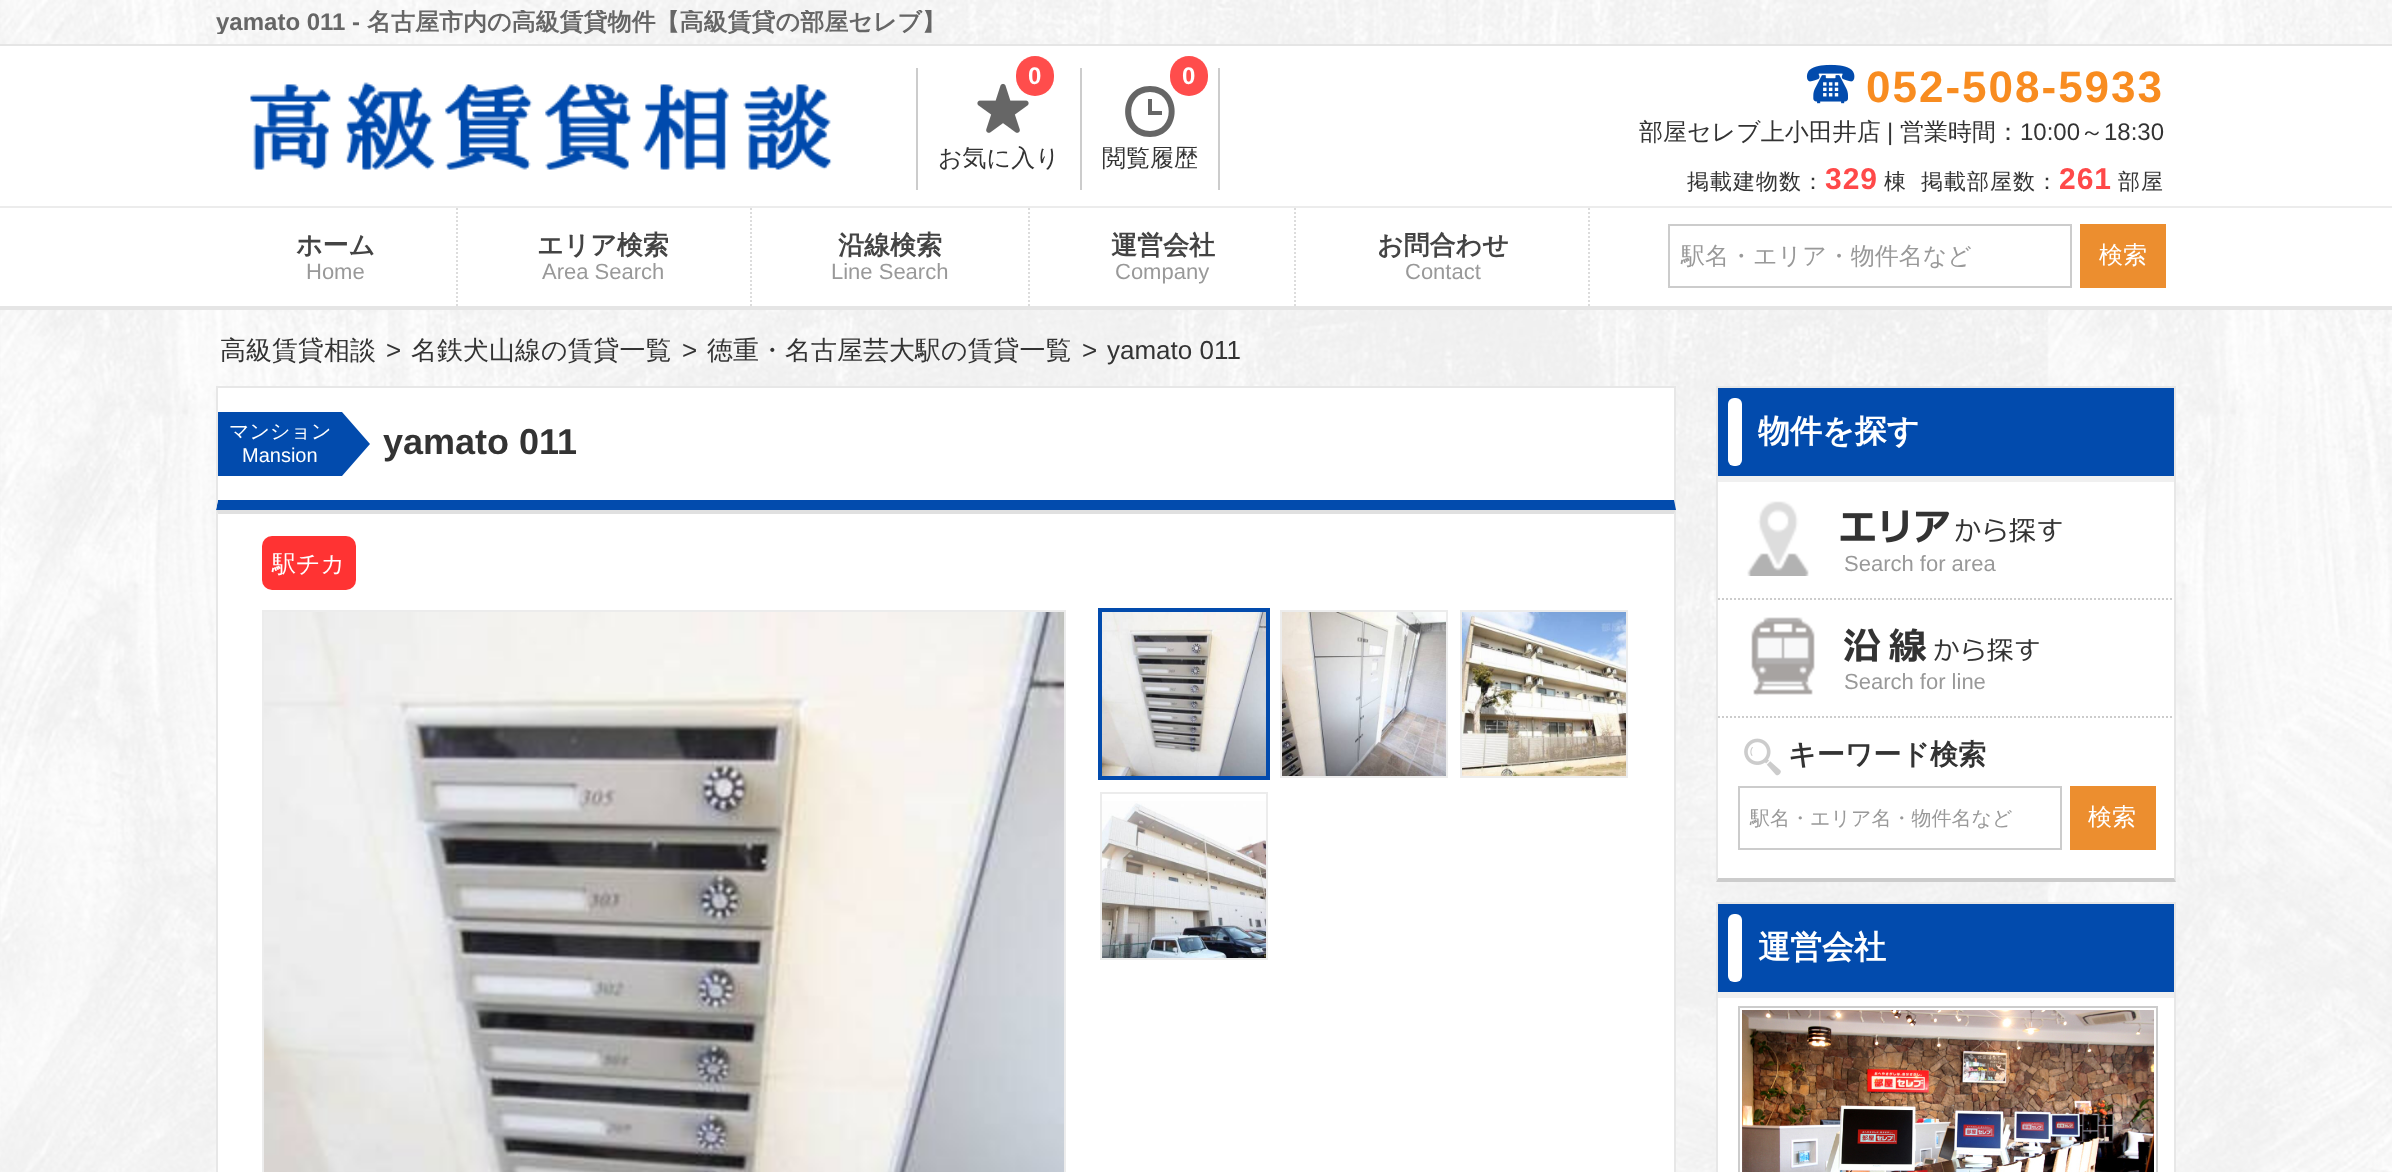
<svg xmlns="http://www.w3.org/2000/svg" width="2392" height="1172">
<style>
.a{font:bold 24px Liberation Sans;fill:#666}
.b{font:bold 24px WenQuanYi Zen Hei;fill:#666}
.c{font:bold 24px Liberation Sans;fill:#fff}
.d{font:500 24px WenQuanYi Zen Hei;fill:#333}
.e{font:bold 44px Liberation Sans;letter-spacing:2px;fill:#f88c20}
.f{font:24px Liberation Sans;fill:#333}
.g{font:500 22px WenQuanYi Zen Hei;letter-spacing:1px;fill:#333}
.h{font:bold 30px Liberation Sans;letter-spacing:1px;fill:#ff4949}
.i{font:bold 26px WenQuanYi Zen Hei;fill:#444}
.j{font:22px Liberation Sans;fill:#999}
.k{font:500 24px WenQuanYi Zen Hei;fill:#999}
.l{font:500 24px WenQuanYi Zen Hei;fill:#fff}
.m{font:500 26px WenQuanYi Zen Hei;fill:#333}
.n{font:26px Liberation Sans;fill:#333}
.o{font:500 20px WenQuanYi Zen Hei;fill:#fff}
.p{font:20px Liberation Sans;fill:#fff}
.q{font:bold 36px Liberation Sans;fill:#333}
.r{font:bold 32px WenQuanYi Zen Hei;fill:#fff}
.s{font:bold 28px WenQuanYi Zen Hei;fill:#333}
.t{font:500 20px WenQuanYi Zen Hei;fill:#999}
</style>
<defs>
<clipPath id="clip1"><path d="M216 10h1960v24H216z"/></clipPath>
</defs>
<rect width="100%" height="100%" fill="#fff"/>
<image href="1.png" x="0" y="310" width="2392" height="862"/>
<path fill="#ececec" d="M0 206h2392v2H0z"/>
<image href="2.png" x="0" y="0" width="2392" height="44"/>
<path fill="#e5e5e5" d="M0 44h2392v2H0z"/>
<image href="3.png" x="250" y="82" width="582" height="88"/>
<path fill="#ccc" d="M1080 68h2v122H1080z"/>
<path fill="#ccc" d="M916 68h2v122H916z"/>
<image href="4.png" x="977" y="83" width="52" height="50"/>
<rect fill="#ff4d4c" x="1016" y="56" width="38" height="40" rx="19"/>
<path fill="#ccc" d="M1218 68h2v122H1218z"/>
<path fill="#666" d="M1150 86c-33 0-33 51 0 51c33 0 33-51 0-51zm0 45c-25 0-25-39 0-39c25 0 25 39 0 39zm2-32h-4v16h14v-4h-10z"/>
<rect fill="#ff4d4c" x="1170" y="56" width="38" height="40" rx="19"/>
<image href="5.png" x="1806" y="64" width="49" height="40"/>
<path fill="#e5e5e5" d="M0 306h2392v4H0z"/>
<path fill="none" stroke="#dcdcdc" stroke-width="2" stroke-dasharray="2 2" d="M457 208v98"/>
<path fill="none" stroke="#dcdcdc" stroke-width="2" stroke-dasharray="2 2" d="M751 208v98"/>
<path fill="none" stroke="#dcdcdc" stroke-width="2" stroke-dasharray="2 2" d="M1029 208v98"/>
<path fill="none" stroke="#dcdcdc" stroke-width="2" stroke-dasharray="2 2" d="M1295 208v98"/>
<path fill="none" stroke="#dcdcdc" stroke-width="2" stroke-dasharray="2 2" d="M1589 208v98"/>
<path fill="none" stroke="#ccc" stroke-width="2" d="M1669 225h402v62H1669z"/>
<path fill="#ec8e2f" d="M2080 224h86v64H2080z"/>
<path fill="#fff" d="M218 388h1456v112H218z"/>
<path fill="#e7e7e7" d="M216 386h1460v2H216z"/>
<path fill="#e7e7e7" d="M1676 386v124l-2-10v-112z"/>
<path fill="#024bad" d="M1676 510h-1460l2-10h1456z"/>
<path fill="#e7e7e7" d="M216 510v-124l2 2v112z"/>
<path fill="#024bad" d="M218 412h124v64H218z"/>
<path fill="#024bad" d="M342 476v-64l28 32z"/>
<path fill="#fff" d="M218 514h1456v658H218z"/>
<path fill="#e0e0e0" d="M216 510h1460l-2 4h-1456z"/>
<path fill="#e7e7e7" d="M1676 510v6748l-2-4v-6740z"/>
<path fill="#e7e7e7" d="M216 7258v-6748l2 4v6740z"/>
<rect fill="#f33" x="262" y="536" width="94" height="54" rx="10"/>
<path fill="none" stroke="#ececec" stroke-width="2" d="M263 611h802v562H263z"/>
<image href="6.png" x="264" y="612" width="800" height="560"/>
<path fill="none" stroke="#024bad" stroke-width="4" d="M1100 610h168v168H1100z"/>
<image href="7.png" x="1102" y="612" width="164" height="164"/>
<path fill="none" stroke="#ececec" stroke-width="2" d="M1281 611h166v166H1281z"/>
<image href="8.png" x="1282" y="612" width="164" height="164"/>
<path fill="none" stroke="#ececec" stroke-width="2" d="M1461 611h166v166H1461z"/>
<image href="9.png" x="1462" y="612" width="164" height="164"/>
<path fill="none" stroke="#ececec" stroke-width="2" d="M1101 793h166v166H1101z"/>
<image href="10.png" x="1102" y="801" width="164" height="157"/>
<path fill="#fff" d="M1718 482h456v396H1718z"/>
<path fill="#e7e7e7" d="M1716 386h460v2H1716z"/>
<path fill="#e7e7e7" d="M2176 386v496l-2-4v-490z"/>
<path fill="#ccc" d="M2176 882h-460l2-4h456z"/>
<path fill="#e7e7e7" d="M1716 882v-496l2 2v490z"/>
<path fill="#024bad" d="M1718 388h456v88H1718z"/>
<rect fill="#fff" x="1728" y="398" width="14" height="68" rx="6"/>
<path fill="#f0f0f0" d="M1718 476h456v6H1718z"/>
<image href="11.png" x="1747" y="501" width="62" height="75"/>
<path fill="none" stroke="#ccc" stroke-width="2" stroke-dasharray="2 2" d="M1718 599h456"/>
<image href="12.png" x="1840" y="510" width="222" height="33"/>
<image href="13.png" x="1751" y="617" width="64" height="79"/>
<path fill="none" stroke="#ccc" stroke-width="2" stroke-dasharray="2 2" d="M1718 717h456"/>
<image href="14.png" x="1844" y="628" width="195" height="35"/>
<image href="15.png" x="1744" y="738" width="37" height="38"/>
<path fill="none" stroke="#ccc" stroke-width="2" d="M1739 787h322v62H1739z"/>
<path fill="#ec8e2f" d="M2070 786h86v64H2070z"/>
<path fill="#fff" d="M1718 998h456v174H1718z"/>
<path fill="#e7e7e7" d="M1716 902h460v2H1716z"/>
<path fill="#e7e7e7" d="M2176 902v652l-2-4v-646z"/>
<path fill="#e7e7e7" d="M1716 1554v-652l2 2v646z"/>
<path fill="#024bad" d="M1718 904h456v88H1718z"/>
<rect fill="#fff" x="1728" y="914" width="14" height="68" rx="6"/>
<path fill="#f0f0f0" d="M1718 992h456v6H1718z"/>
<path fill="none" stroke="#ccc" stroke-width="2" d="M1739 1007h418v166H1739z"/>
<image href="16.png" x="1742" y="1010" width="412" height="162"/>
<g clip-path="url(#clip1)">
<text class="a" x="216" y="30">yamato 011 -</text>
<text class="b" x="367" y="30">名古屋市内の高級賃貸物件【高級賃貸の部屋セレブ】</text>
</g>
<text class="c" x="1028" y="84">0</text>
<text class="d" x="938" y="166">お気に入り</text>
<text class="c" x="1182" y="84">0</text>
<text class="d" x="1102" y="166">閲覧履歴</text>
<text class="e" x="1866" y="102">052-508-5933</text>
<text class="d" x="1639" y="140">部屋セレブ上小田井店</text>
<text class="f" x="1887" y="140">|</text>
<text class="d" x="1900" y="140">営業時間：</text>
<text class="f" x="2020" y="140">10:00</text>
<text class="d" x="2080" y="140">～</text>
<text class="f" x="2104" y="140">18:30</text>
<text class="g" x="1687" y="189">掲載建物数：</text>
<text class="h" x="1825" y="189">329</text>
<text class="g" x="1884" y="189">棟</text>
<text class="g" x="1921" y="189">掲載部屋数：</text>
<text class="h" x="2059" y="189">261</text>
<text class="g" x="2118" y="189">部屋</text>
<text class="i" x="296" y="254">ホーム</text>
<text class="j" x="306" y="279">Home</text>
<text class="i" x="537" y="254">エリア検索</text>
<text class="j" x="542" y="279">Area Search</text>
<text class="i" x="838" y="254">沿線検索</text>
<text class="j" x="831" y="279">Line Search</text>
<text class="i" x="1111" y="254">運営会社</text>
<text class="j" x="1115" y="279">Company</text>
<text class="i" x="1377" y="254">お問合わせ</text>
<text class="j" x="1405" y="279">Contact</text>
<text class="k" x="1681" y="264">駅名・エリア・物件名など</text>
<text class="l" x="2099" y="263">検索</text>
<text class="m" x="220" y="359">高級賃貸相談</text>
<text class="n" x="386" y="359">&gt;</text>
<text class="m" x="411" y="359">名鉄犬山線の賃貸一覧</text>
<text class="n" x="682" y="359">&gt;</text>
<text class="m" x="707" y="359">徳重・名古屋芸大駅の賃貸一覧</text>
<text class="n" x="1082" y="359">&gt;</text>
<text class="n" x="1107" y="359">yamato 011</text>
<text class="o" x="229" y="438">マンション</text>
<text class="p" x="242" y="462">Mansion</text>
<text class="q" x="383" y="454">yamato 011</text>
<text class="l" x="272" y="572">駅チカ</text>
<text class="r" x="1758" y="442">物件を探す</text>
<text class="j" x="1844" y="571">Search for area</text>
<text class="j" x="1844" y="689">Search for line</text>
<text class="s" x="1788" y="764">キーワード検索</text>
<text class="t" x="1750" y="825">駅名・エリア名・物件名など</text>
<text class="l" x="2088" y="825">検索</text>
<text class="r" x="1758" y="958">運営会社</text>
</svg>
